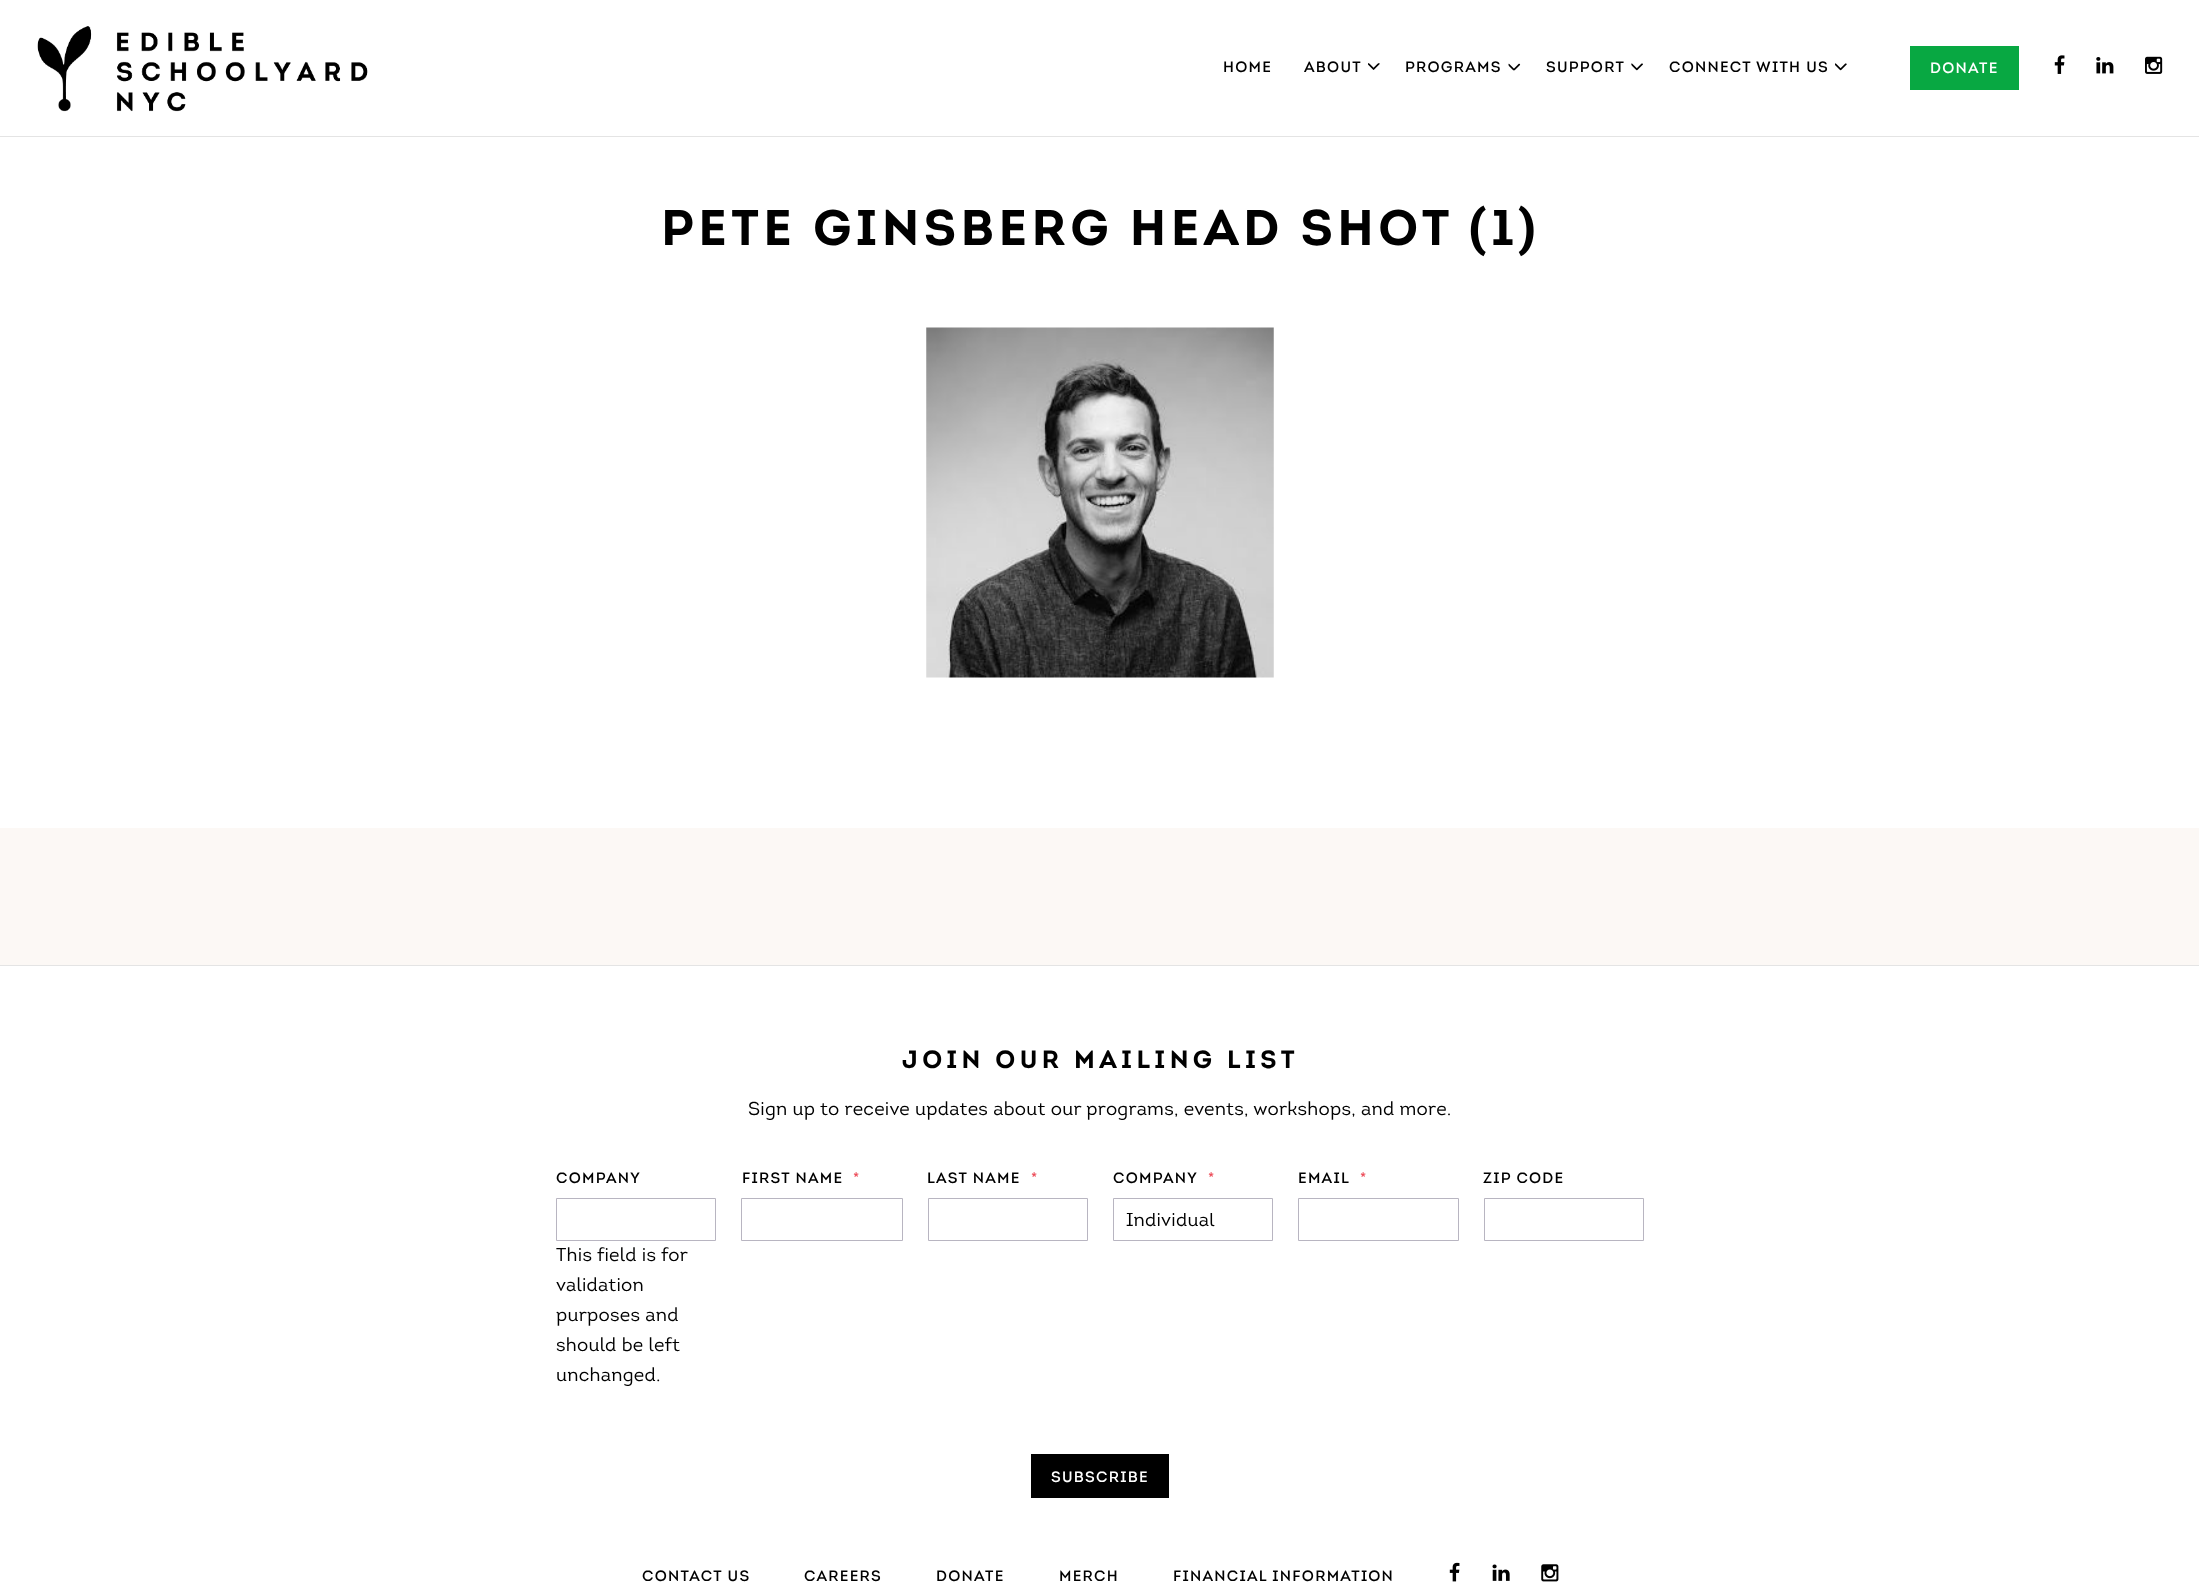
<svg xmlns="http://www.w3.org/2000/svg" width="2199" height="1592">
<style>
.a{font:15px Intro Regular;letter-spacing:1.25px;fill:#000}
.b{font:15px Intro Regular;letter-spacing:1.25px;fill:#fff}
.c{font:bold 50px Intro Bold;letter-spacing:4.4px;fill:#000}
.d{font:bold 25px Intro Bold;letter-spacing:4.4px;fill:#000}
.e{font:18.75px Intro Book;letter-spacing:0.25px;fill:#000}
.f{font:15px Intro Regular;letter-spacing:1.25px;fill:#ed4d5a}
</style>
<defs>
<clipPath id="clip1"><path d="M1126 1213h133v18H1126z"/></clipPath>
</defs>
<rect width="100%" height="100%" fill="#fff"/>
<path fill="#e4e4e4" d="M0 136h2199v1H0z"/>
<image href="1.png" x="37" y="26" width="331" height="86"/>
<image href="2.png" x="1368" y="63" width="12" height="7"/>
<image href="3.png" x="1508" y="63" width="13" height="8"/>
<image href="4.png" x="1631" y="63" width="12" height="8"/>
<image href="5.png" x="1835" y="63" width="12" height="8"/>
<path fill="#08a842" d="M1910 46h109v44H1910z"/>
<image href="6.png" x="2054" y="55" width="11" height="19"/>
<image href="7.png" x="2096" y="57" width="18" height="17"/>
<image href="8.png" x="2145" y="56" width="18" height="18"/>
<image href="9.png" x="926" y="327" width="348" height="351"/>
<path fill="#fcf8f5" d="M0 828h2199v137H0z"/>
<path fill="#e4e4e4" d="M0 965h2199v1H0z"/>
<path fill="none" stroke="#b8b5c1" d="M556.5 1198.5h159v42H556.5z"/>
<path fill="none" stroke="#b8b5c1" d="M741.5 1198.5h161v42H741.5z"/>
<path fill="none" stroke="#b8b5c1" d="M928.5 1198.5h159v42H928.5z"/>
<path fill="none" stroke="#b8b5c1" d="M1113.5 1198.5h159v42H1113.5z"/>
<path fill="none" stroke="#b8b5c1" d="M1298.5 1198.5h160v42H1298.5z"/>
<path fill="none" stroke="#b8b5c1" d="M1484.5 1198.5h159v42H1484.5z"/>
<path fill="#000" d="M1031 1454h138v44H1031z"/>
<image href="10.png" x="1449" y="1562" width="11" height="20"/>
<image href="11.png" x="1492" y="1564" width="18" height="17"/>
<image href="12.png" x="1541" y="1564" width="18" height="18"/>
<text class="a" x="1223" y="72">HOME</text>
<text class="a" x="1304" y="72">ABOUT</text>
<text class="a" x="1405" y="72">PROGRAMS</text>
<text class="a" x="1546" y="72">SUPPORT</text>
<text class="a" x="1669" y="72">CONNECT WITH US</text>
<text class="b" x="1930" y="73">DONATE</text>
<text class="c" x="661" y="245">PETE GINSBERG HEAD SHOT (1)</text>
<text class="d" x="902" y="1068">JOIN OUR MAILING LIST</text>
<text class="e" x="748" y="1115">Sign up to receive updates about our programs, events, workshops, and more.</text>
<text class="a" x="556" y="1183">COMPANY</text>
<text class="e" x="556" y="1261">This field is for</text>
<text class="e" x="556" y="1291">validation</text>
<text class="e" x="556" y="1321">purposes and</text>
<text class="e" x="556" y="1351">should be left</text>
<text class="e" x="556" y="1381">unchanged.</text>
<text class="a" x="742" y="1183">FIRST NAME</text>
<text class="f" x="853" y="1183">*</text>
<text class="a" x="927" y="1183">LAST NAME</text>
<text class="f" x="1031" y="1183">*</text>
<text class="a" x="1113" y="1183">COMPANY</text>
<text class="f" x="1208" y="1183">*</text>
<g clip-path="url(#clip1)">
<text class="e" x="1126" y="1226">Individual</text>
</g>
<text class="a" x="1298" y="1183">EMAIL</text>
<text class="f" x="1360" y="1183">*</text>
<text class="a" x="1483" y="1183">ZIP CODE</text>
<text class="b" x="1051" y="1482">SUBSCRIBE</text>
<text class="a" x="642" y="1581">CONTACT US</text>
<text class="a" x="804" y="1581">CAREERS</text>
<text class="a" x="936" y="1581">DONATE</text>
<text class="a" x="1059" y="1581">MERCH</text>
<text class="a" x="1173" y="1581">FINANCIAL INFORMATION</text>
</svg>
